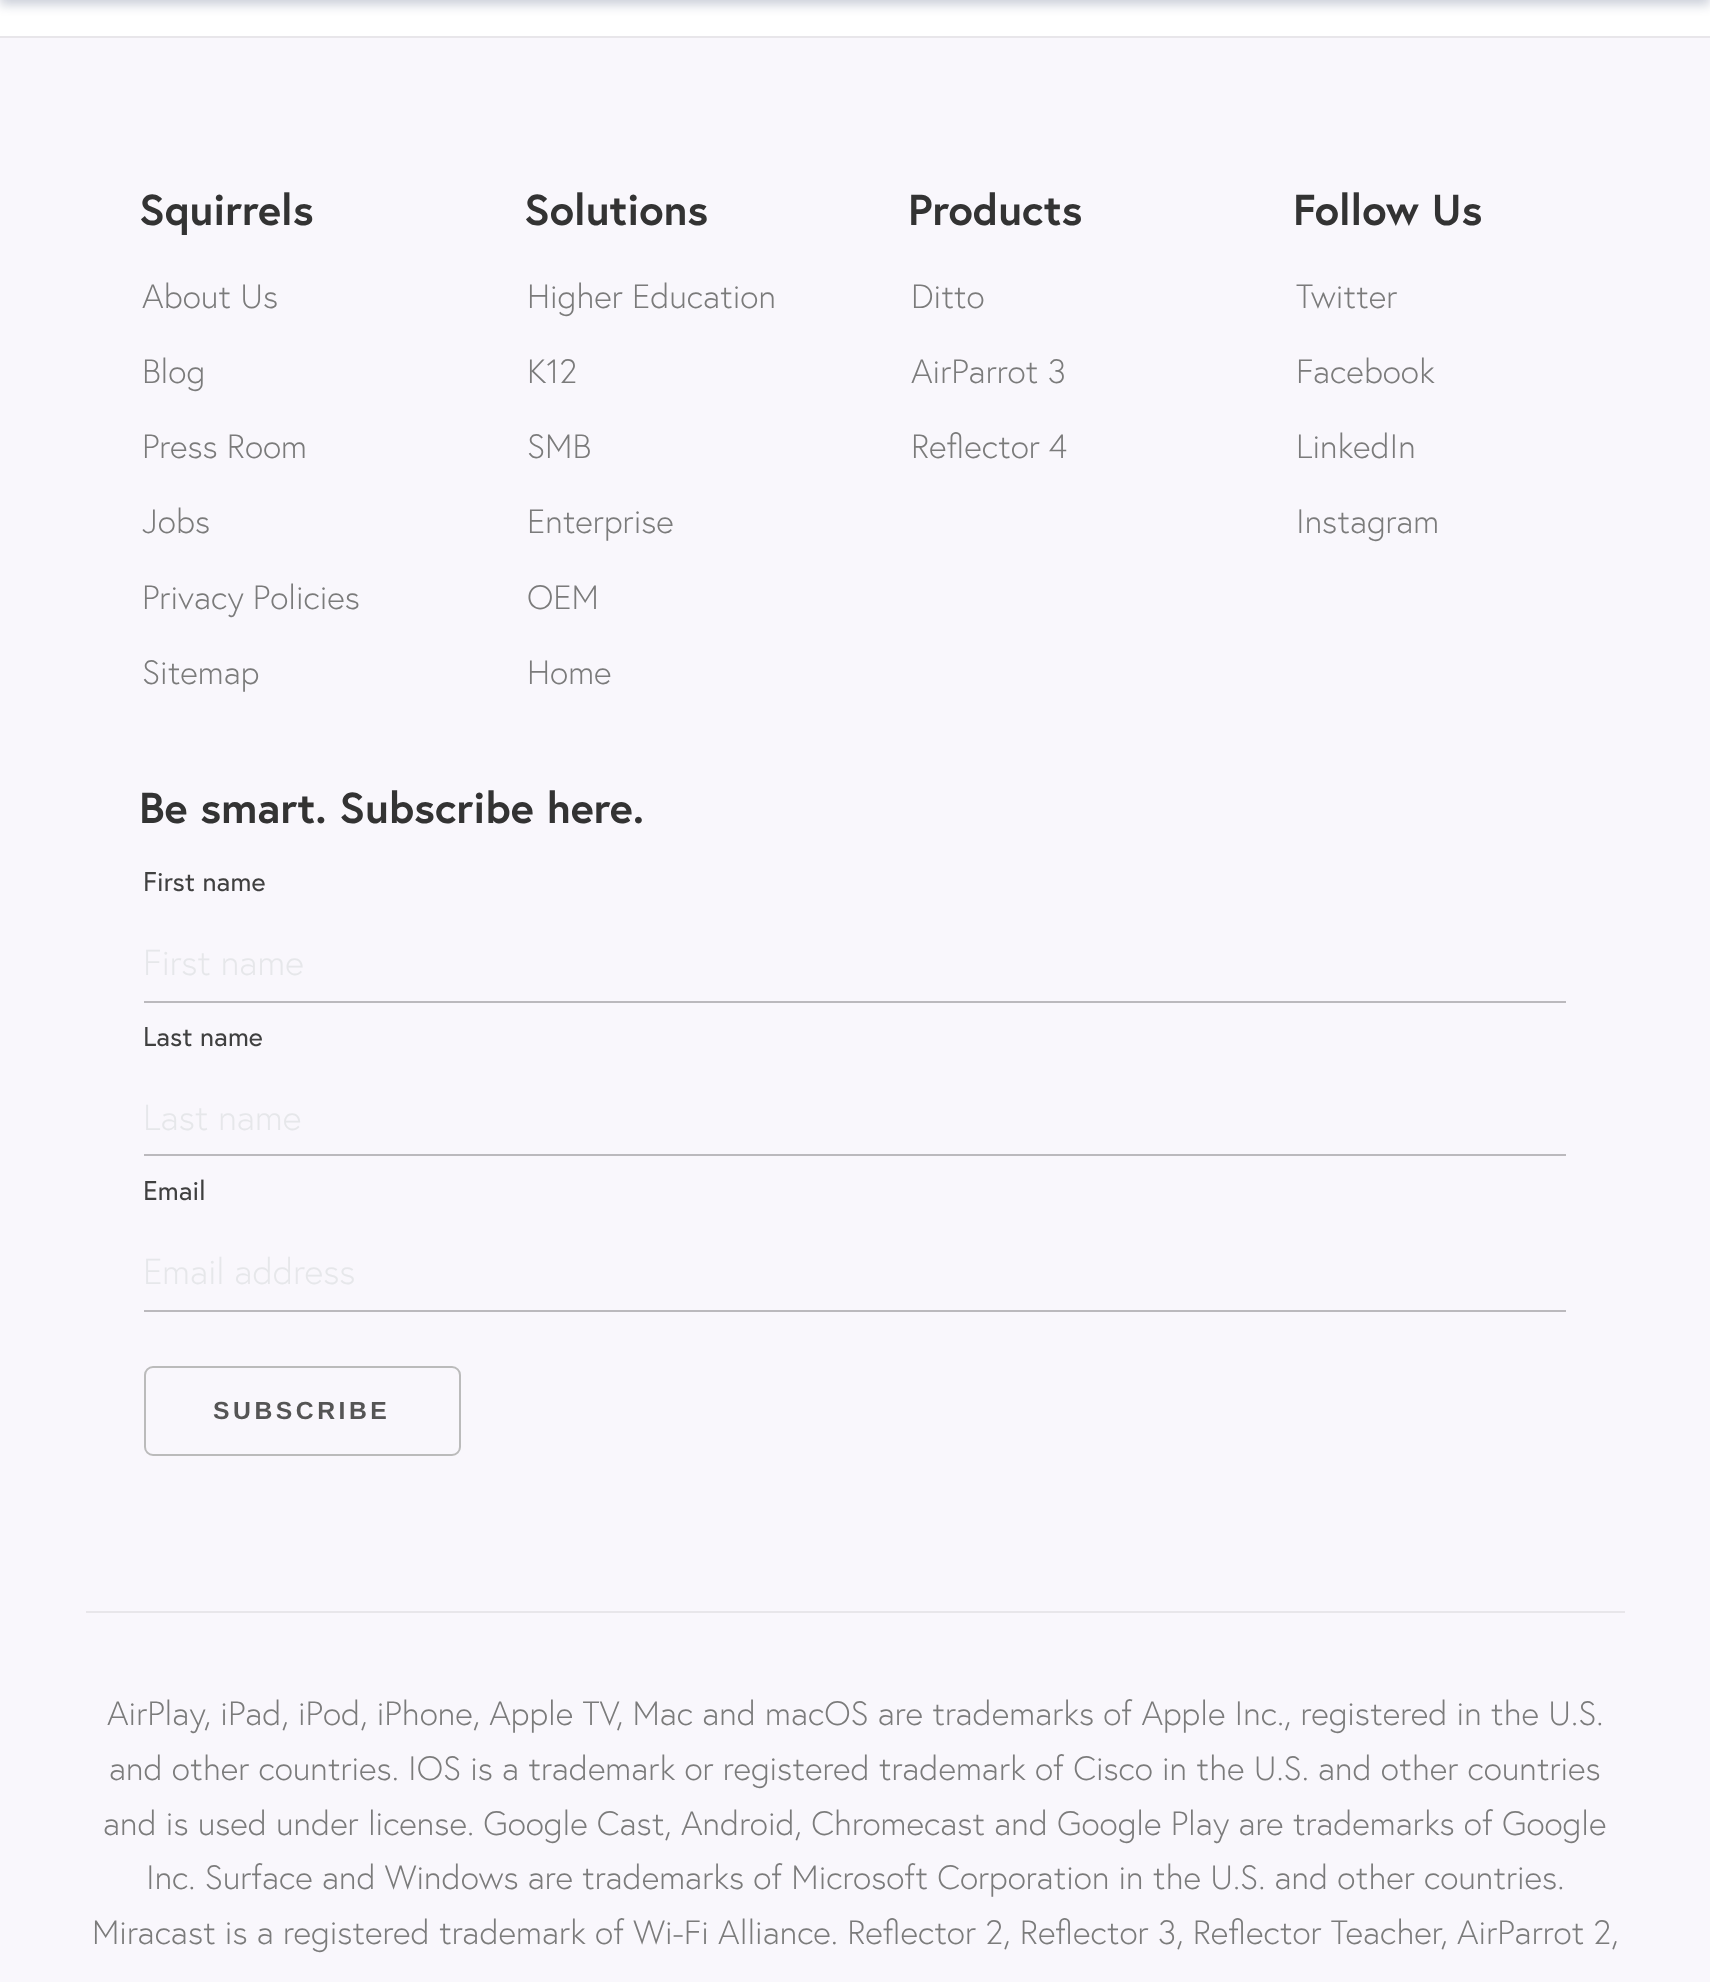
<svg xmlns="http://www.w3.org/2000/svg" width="1710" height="1982">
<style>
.a{font:bold 43.25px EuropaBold;fill:#333}
.b{font:300 33.75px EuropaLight;fill:#7b7b7b}
.c{font:27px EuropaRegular;fill:#404040}
.d{font:300 36px EuropaLight;fill:#e6e7ea}
.e{font:bold 24.75px Liberation Sans;letter-spacing:3.5px;fill:#555}
</style>
<rect width="100%" height="100%" fill="#fff"/>
<path fill="#00144633" filter="blur(5.5px)" d="M0 -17h1710v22H0z"/>
<path fill="#f9f7fc" d="M0 38h1710v1944H0z"/>
<path fill="#e8e6ea" d="M0 36h1710v2H0z"/>
<path fill="#bbb9bd" d="M144 1001h1422v2H144z"/>
<path fill="#bbb9bd" d="M144 1154h1422v2H144z"/>
<path fill="#bbb9bd" d="M144 1310h1422v2H144z"/>
<rect fill="none" stroke="#bbb" stroke-width="2" x="145" y="1367" width="315" height="88" rx="8"/>
<path fill="#e8e6ea" d="M86 1611h1539v2H86z"/>
<text class="a" x="139" y="225">Squirrels</text>
<text class="b" x="142" y="308">About Us</text>
<text class="b" x="142" y="383">Blog</text>
<text class="b" x="142" y="458">Press Room</text>
<text class="b" x="142" y="533">Jobs</text>
<text class="b" x="142" y="609">Privacy Policies</text>
<text class="b" x="142" y="684">Sitemap</text>
<text class="a" x="524" y="225">Solutions</text>
<text class="b" x="527" y="308">Higher Education</text>
<text class="b" x="527" y="383">K12</text>
<text class="b" x="527" y="458">SMB</text>
<text class="b" x="527" y="533">Enterprise</text>
<text class="b" x="527" y="609">OEM</text>
<text class="b" x="527" y="684">Home</text>
<text class="a" x="908" y="225">Products</text>
<text class="b" x="911" y="308">Ditto</text>
<text class="b" x="911" y="383">AirParrot 3</text>
<text class="b" x="911" y="458">Reflector 4</text>
<text class="a" x="1293" y="225">Follow Us</text>
<text class="b" x="1296" y="308">Twitter</text>
<text class="b" x="1296" y="383">Facebook</text>
<text class="b" x="1296" y="458">LinkedIn</text>
<text class="b" x="1296" y="533">Instagram</text>
<text class="a" x="139" y="823">Be smart. Subscribe here.</text>
<text class="c" x="143" y="891">First name</text>
<text class="d" x="143" y="975">First name</text>
<text class="c" x="143" y="1046">Last name</text>
<text class="d" x="143" y="1130">Last name</text>
<text class="c" x="143" y="1200">Email</text>
<text class="d" x="143" y="1284">Email address</text>
<text class="e" x="213" y="1419">SUBSCRIBE</text>
<text class="b" x="107" y="1725">AirPlay, iPad, iPod, iPhone, Apple TV, Mac and macOS are trademarks of Apple Inc., registered in the U.S.</text>
<text class="b" x="109" y="1780">and other countries. IOS is a trademark or registered trademark of Cisco in the U.S. and other countries</text>
<text class="b" x="103" y="1835">and is used under license. Google Cast, Android, Chromecast and Google Play are trademarks of Google</text>
<text class="b" x="146" y="1889">Inc. Surface and Windows are trademarks of Microsoft Corporation in the U.S. and other countries.</text>
<text class="b" x="92" y="1944">Miracast is a registered trademark of Wi-Fi Alliance. Reflector 2, Reflector 3, Reflector Teacher, AirParrot 2,</text>
</svg>
